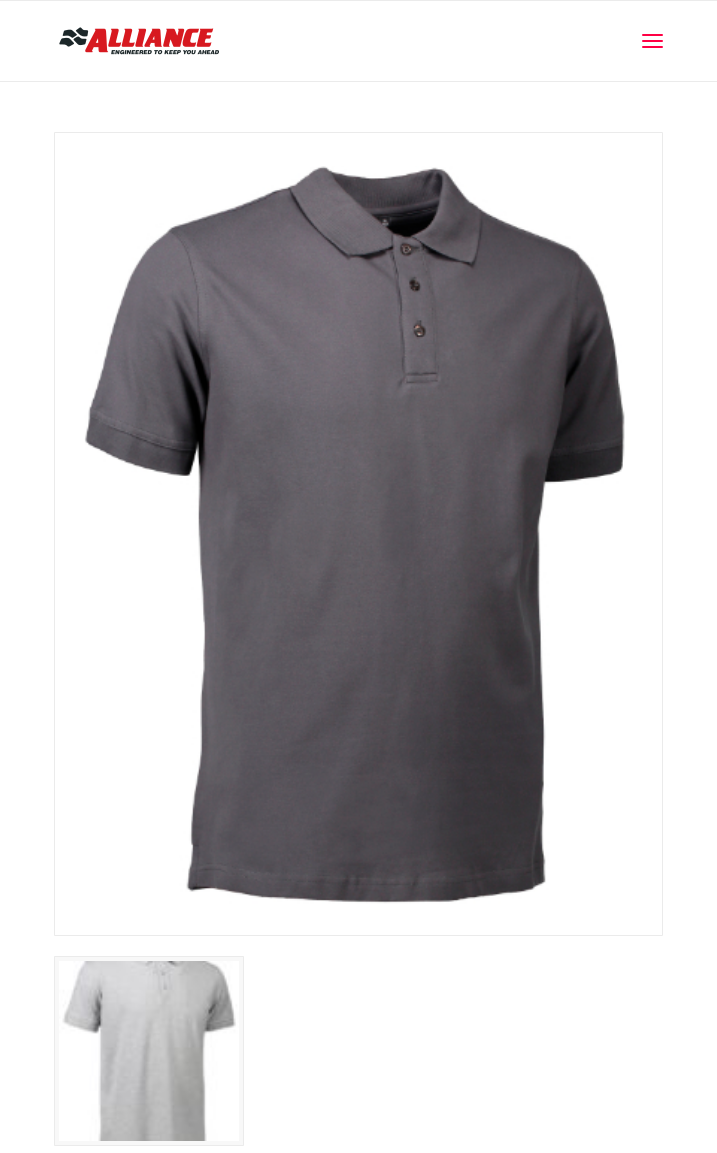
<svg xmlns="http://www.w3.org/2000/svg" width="717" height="1153">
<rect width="100%" height="100%" fill="#fff"/>
<path fill="#ebebeb" d="M0 0h717v1H0z"/>
<path fill="#ebebeb" d="M0 81h717v1H0z"/>
<image href="1.png" x="59" y="27" width="160" height="28"/>
<rect fill="#f04" x="642" y="40" width="21" height="2" rx="1"/>
<rect fill="#f04" x="642" y="34" width="21" height="2" rx="1"/>
<rect fill="#f04" x="642" y="46" width="21" height="2" rx="1"/>
<path fill="none" stroke="#ebebeb" d="M54.5 132.5h608v803H54.5z"/>
<image href="2.png" x="84" y="166" width="541" height="738"/>
<path fill="#f8f8f8" stroke="#ebebeb" d="M54.5 956.5h189v189H54.5z"/>
<image href="3.png" x="59" y="961" width="180" height="180"/>
</svg>
